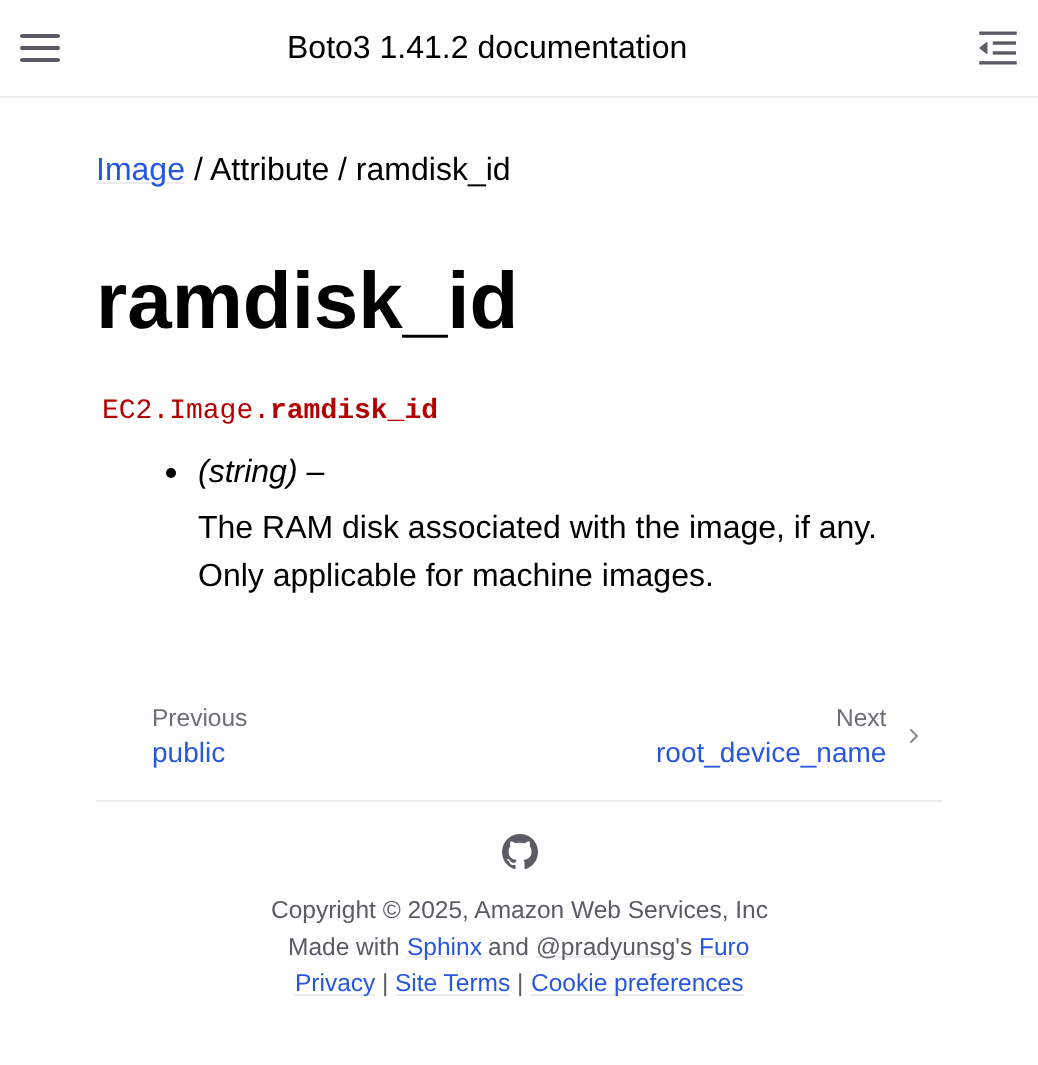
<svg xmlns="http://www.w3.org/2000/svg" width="1038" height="1065">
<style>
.a{font:32px Liberation Sans;fill:#000}
.b{font:32px Liberation Sans;fill:#2757dd}
.c{font:bold 80px Liberation Sans;fill:#000}
.d{font:28px Liberation Mono;fill:#b30000}
.e{font:bold 28px Liberation Mono;fill:#b30000}
.f{font:italic 32px Liberation Sans;fill:#000}
.g{font:24.5px Liberation Sans;fill:#6b6f76}
.h{font:28px Liberation Sans;fill:#2757dd}
.i{font:24.5px Liberation Sans;fill:#5a5c63}
.j{font:24.5px Liberation Sans;fill:#2757dd}
</style>
<rect width="100%" height="100%" fill="#fff"/>
<path fill="#eeebee" d="M0 96h1038v2H0z"/>
<path fill="none" stroke="#5a5c63" stroke-width="4" stroke-linecap="round" stroke-linejoin="round" d="M22 48h36m-36-12h36m-36 24h36"/>
<image href="1.png" x="979" y="31" width="38" height="34"/>
<path fill="#eeebee" d="M96 182h88v2H96z"/>
<circle fill="#000" cx="171" cy="473" r="5"/>
<path fill="none" stroke="#878787" stroke-width="2" stroke-linecap="round" stroke-linejoin="round" d="M911 742l6-6l-6-6"/>
<path fill="#eeebee" d="M96 800h846v2H96z"/>
<image href="2.png" x="502" y="834" width="36" height="36"/>
<path fill="#eeebee" d="M406 956h76v2H406z"/>
<path fill="#eeebee" d="M536 956h140v2H536z"/>
<path fill="#eeebee" d="M700 956h50v2H700z"/>
<path fill="#eeebee" d="M294 994h82v2H294z"/>
<path fill="#eeebee" d="M396 994h114v2H396z"/>
<path fill="#eeebee" d="M530 994h214v2H530z"/>
<text class="a" x="287" y="58">Boto3 1.41.2 documentation</text>
<text class="b" x="96" y="180">Image</text>
<text class="a" x="194" y="180">/ Attribute / ramdisk_id</text>
<text class="c" x="96" y="328">ramdisk_id</text>
<text class="d" x="102" y="418">EC2.Image.</text>
<text class="e" x="270" y="418">ramdisk_id</text>
<text class="f" x="198" y="482">(string) –</text>
<text class="a" x="198" y="538">The RAM disk associated with the image, if any.</text>
<text class="a" x="198" y="586">Only applicable for machine images.</text>
<text class="g" x="152" y="726">Previous</text>
<text class="h" x="152" y="762">public</text>
<text class="g" x="836" y="726">Next</text>
<text class="h" x="656" y="762">root_device_name</text>
<text class="i" x="271" y="918">Copyright © 2025, Amazon Web Services, Inc</text>
<text class="i" x="288" y="955">Made with</text>
<text class="j" x="407" y="955">Sphinx</text>
<text class="i" x="488" y="955">and</text>
<text class="i" x="536" y="955">@pradyunsg's</text>
<text class="j" x="699" y="955">Furo</text>
<text class="j" x="295" y="991">Privacy</text>
<text class="i" x="382" y="991">|</text>
<text class="j" x="395" y="991">Site Terms</text>
<text class="i" x="517" y="991">|</text>
<text class="j" x="531" y="991">Cookie preferences</text>
</svg>
